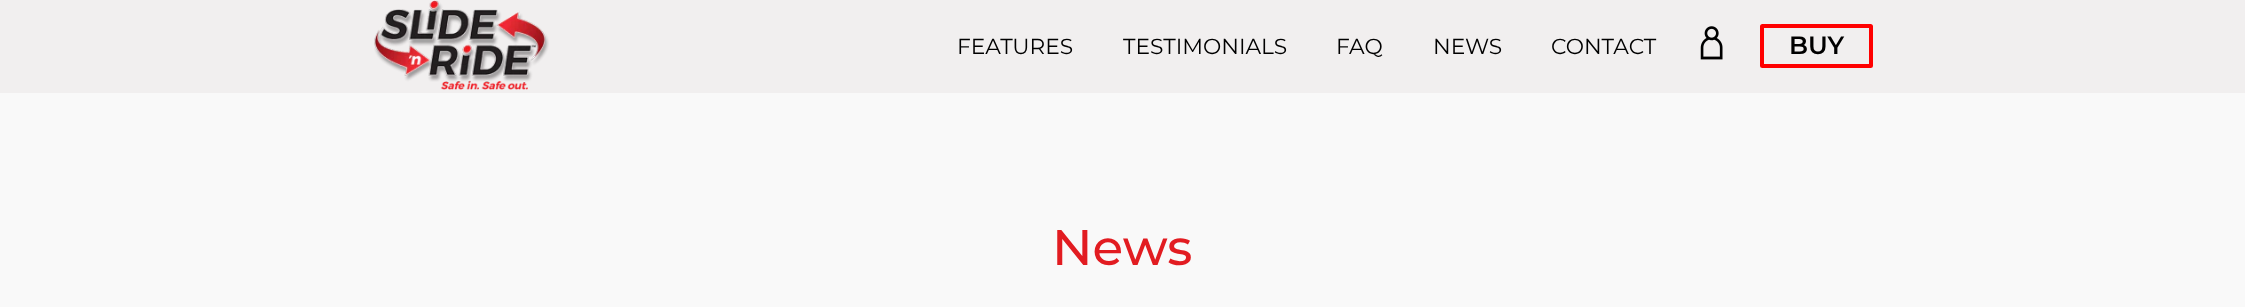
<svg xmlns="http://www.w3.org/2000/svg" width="2245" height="307">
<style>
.a{font:21.75px Montserrat;fill:#000}
.b{font:600 25px Montserrat;fill:#000}
.c{font:500 50px Montserrat;fill:#e21c21}
</style>
<rect width="100%" height="100%" fill="#f9f9f9"/>
<path fill="#f1efef" d="M0 0h2245v93H0z"/>
<image href="1.png" x="374" y="0" width="175" height="90"/>
<image href="2.png" x="1700" y="26" width="23" height="34"/>
<rect fill="none" stroke="#f00" stroke-width="4" x="1762" y="26" width="109" height="40" rx="0.5"/>
<text class="a" x="957" y="54">FEATURES</text>
<text class="a" x="1123" y="54">TESTIMONIALS</text>
<text class="a" x="1336" y="54">FAQ</text>
<text class="a" x="1433" y="54">NEWS</text>
<text class="a" x="1551" y="54">CONTACT</text>
<text class="b" x="1789" y="54">BUY</text>
<text class="c" x="1052" y="265">News</text>
</svg>
